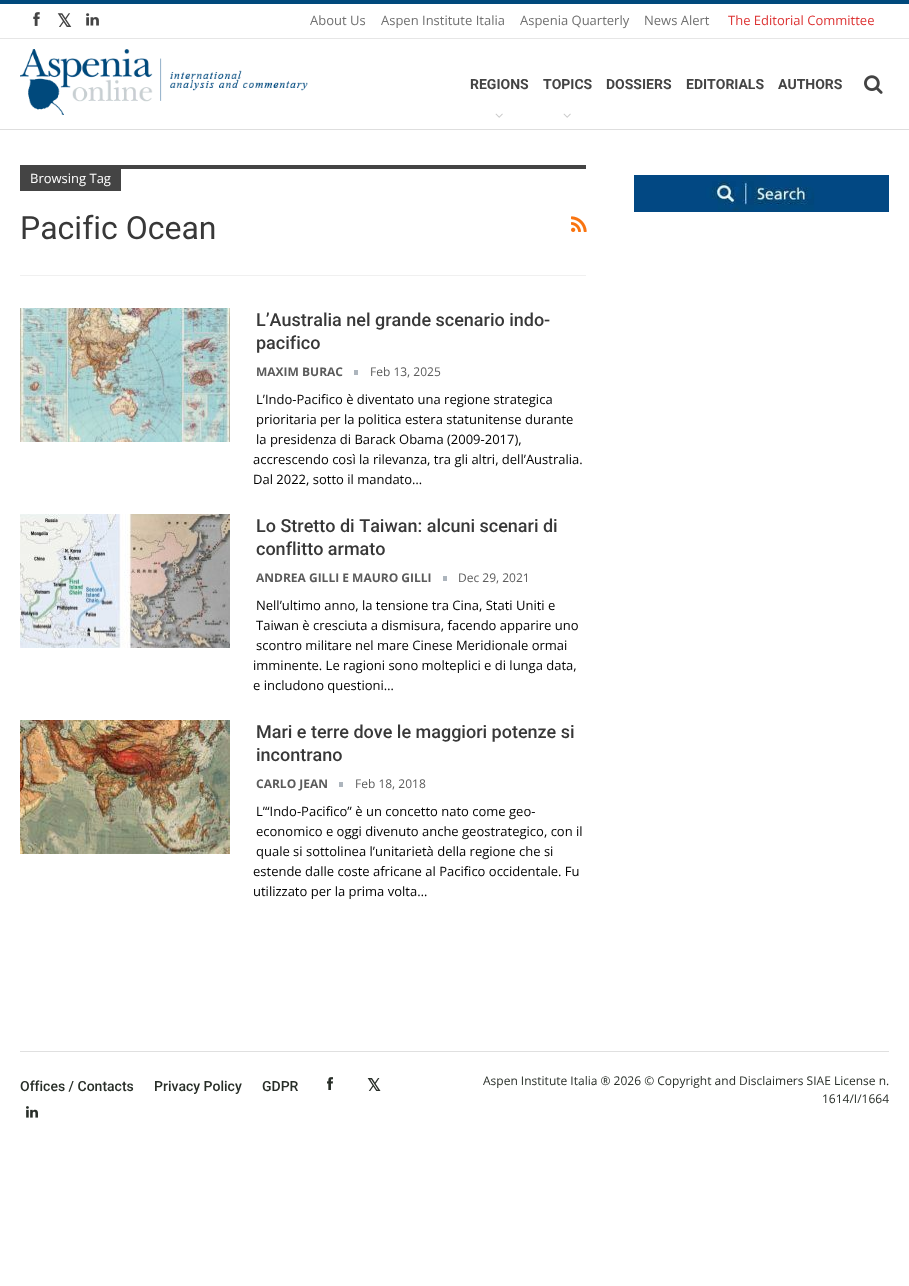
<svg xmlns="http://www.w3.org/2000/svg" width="909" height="1286">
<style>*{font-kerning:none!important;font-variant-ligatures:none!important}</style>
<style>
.a{font:bold 18px DejaVu Sans;fill:#444}
.b{font:13px Open Sans;fill:#707070}
.c{font:13px Open Sans;fill:#d33}
.d{font:bold 14px Roboto;fill:#444}
.e{font:13px Open Sans;fill:#fff}
.f{font:32px Roboto;fill:#383838}
.g{font:500 18px Roboto;fill:#383838}
.h{font:bold 12px Open Sans;fill:#5b5b5b}
.i{font:12px Open Sans;fill:#5b5b5b}
.j{font:13px Open Sans;fill:#000}
.k{font:500 14px Roboto;fill:#282e28}
.l{font:bold 17px DejaVu Sans;fill:#282e28}
.m{font:12px Open Sans;fill:#282e28}
</style>
<rect width="100%" height="100%" fill="#fff"/>
<path fill="#00497c" d="M0 0h909v4H0z"/>
<path fill="#dedede" d="M0 129h909v1H0z"/>
<path fill="#e6e6e6" d="M0 38h909v1H0z"/>
<image href="1.png" x="33" y="12" width="7" height="14"/>
<image href="2.png" x="86" y="13" width="13" height="13"/>
<image href="3.png" x="20" y="49" width="288" height="66"/>
<image href="4.png" x="495" y="113" width="8" height="5"/>
<image href="4.png" x="563" y="113" width="8" height="5"/>
<image href="5.png" x="864" y="75" width="19" height="19"/>
<path fill="#f0f0f0" d="M20 275h566v1H20z"/>
<path fill="#444" d="M121 165h465v4H121z"/>
<path fill="#444" d="M20 165h101v26H20z"/>
<image href="6.png" x="571" y="216" width="16" height="16"/>
<image href="7.png" x="20" y="308" width="210" height="134"/>
<path fill="#adb5bd" d="M354 370h4v5H354z"/>
<image href="8.png" x="20" y="514" width="210" height="134"/>
<path fill="#adb5bd" d="M443 576h4v5H443z"/>
<image href="9.png" x="20" y="720" width="210" height="134"/>
<path fill="#adb5bd" d="M339 782h4v5H339z"/>
<image href="10.png" x="634" y="175" width="255" height="37"/>
<path fill="#e0e0e0" d="M20 1051h869v1H20z"/>
<image href="11.png" x="327" y="1077" width="6" height="13"/>
<image href="12.png" x="26" y="1106" width="12" height="12"/>
<text class="a" x="57" y="27">𝕏</text>
<text class="b" x="310" y="25">About Us</text>
<text class="b" x="381" y="25">Aspen Institute Italia</text>
<text class="b" x="520" y="25">Aspenia Quarterly</text>
<text class="b" x="644" y="25">News Alert</text>
<text class="c" x="728" y="25">The Editorial Committee</text>
<text class="d" x="470" y="89">REGIONS</text>
<text class="d" x="543" y="89">TOPICS</text>
<text class="d" x="606" y="89">DOSSIERS</text>
<text class="d" x="686" y="89">EDITORIALS</text>
<text class="d" x="778" y="89">AUTHORS</text>
<text class="e" x="30" y="183">Browsing Tag</text>
<text class="f" x="20" y="239">Pacific Ocean</text>
<text class="g" x="256" y="326">L’Australia nel grande scenario indo-</text>
<text class="g" x="256" y="349">pacifico</text>
<text class="h" x="256" y="376">MAXIM BURAC</text>
<text class="i" x="370" y="376">Feb 13, 2025</text>
<text class="j" x="256" y="404">L’Indo-Pacifico è diventato una regione strategica</text>
<text class="j" x="256" y="424">prioritaria per la politica estera statunitense durante</text>
<text class="j" x="256" y="444">la presidenza di Barack Obama (2009-2017),</text>
<text class="j" x="253" y="464">accrescendo così la rilevanza, tra gli altri, dell’Australia.</text>
<text class="j" x="253" y="484">Dal 2022, sotto il mandato…</text>
<text class="g" x="256" y="532">Lo Stretto di Taiwan: alcuni scenari di</text>
<text class="g" x="256" y="555">conflitto armato</text>
<text class="h" x="256" y="582">ANDREA GILLI E MAURO GILLI</text>
<text class="i" x="458" y="582">Dec 29, 2021</text>
<text class="j" x="256" y="610">Nell’ultimo anno, la tensione tra Cina, Stati Uniti e</text>
<text class="j" x="256" y="630">Taiwan è cresciuta a dismisura, facendo apparire uno</text>
<text class="j" x="256" y="650">scontro militare nel mare Cinese Meridionale ormai</text>
<text class="j" x="253" y="670">imminente. Le ragioni sono molteplici e di lunga data,</text>
<text class="j" x="253" y="690">e includono questioni…</text>
<text class="g" x="256" y="738">Mari e terre dove le maggiori potenze si</text>
<text class="g" x="256" y="761">incontrano</text>
<text class="h" x="256" y="788">CARLO JEAN</text>
<text class="i" x="355" y="788">Feb 18, 2018</text>
<text class="j" x="256" y="816">L’“Indo-Pacifico” è un concetto nato come geo-</text>
<text class="j" x="256" y="836">economico e oggi divenuto anche geostrategico, con il</text>
<text class="j" x="256" y="856">quale si sottolinea l’unitarietà della regione che si</text>
<text class="j" x="253" y="876">estende dalle coste africane al Pacifico occidentale. Fu</text>
<text class="j" x="253" y="896">utilizzato per la prima volta…</text>
<text class="k" x="20" y="1091">Offices / Contacts</text>
<text class="k" x="154" y="1091">Privacy Policy</text>
<text class="k" x="262" y="1091">GDPR</text>
<text class="l" x="367" y="1091">𝕏</text>
<text class="m" x="483" y="1085">Aspen Institute Italia ® 2026 © Copyright and Disclaimers SIAE License n.</text>
<text class="m" x="822" y="1103">1614/I/1664</text>
</svg>
